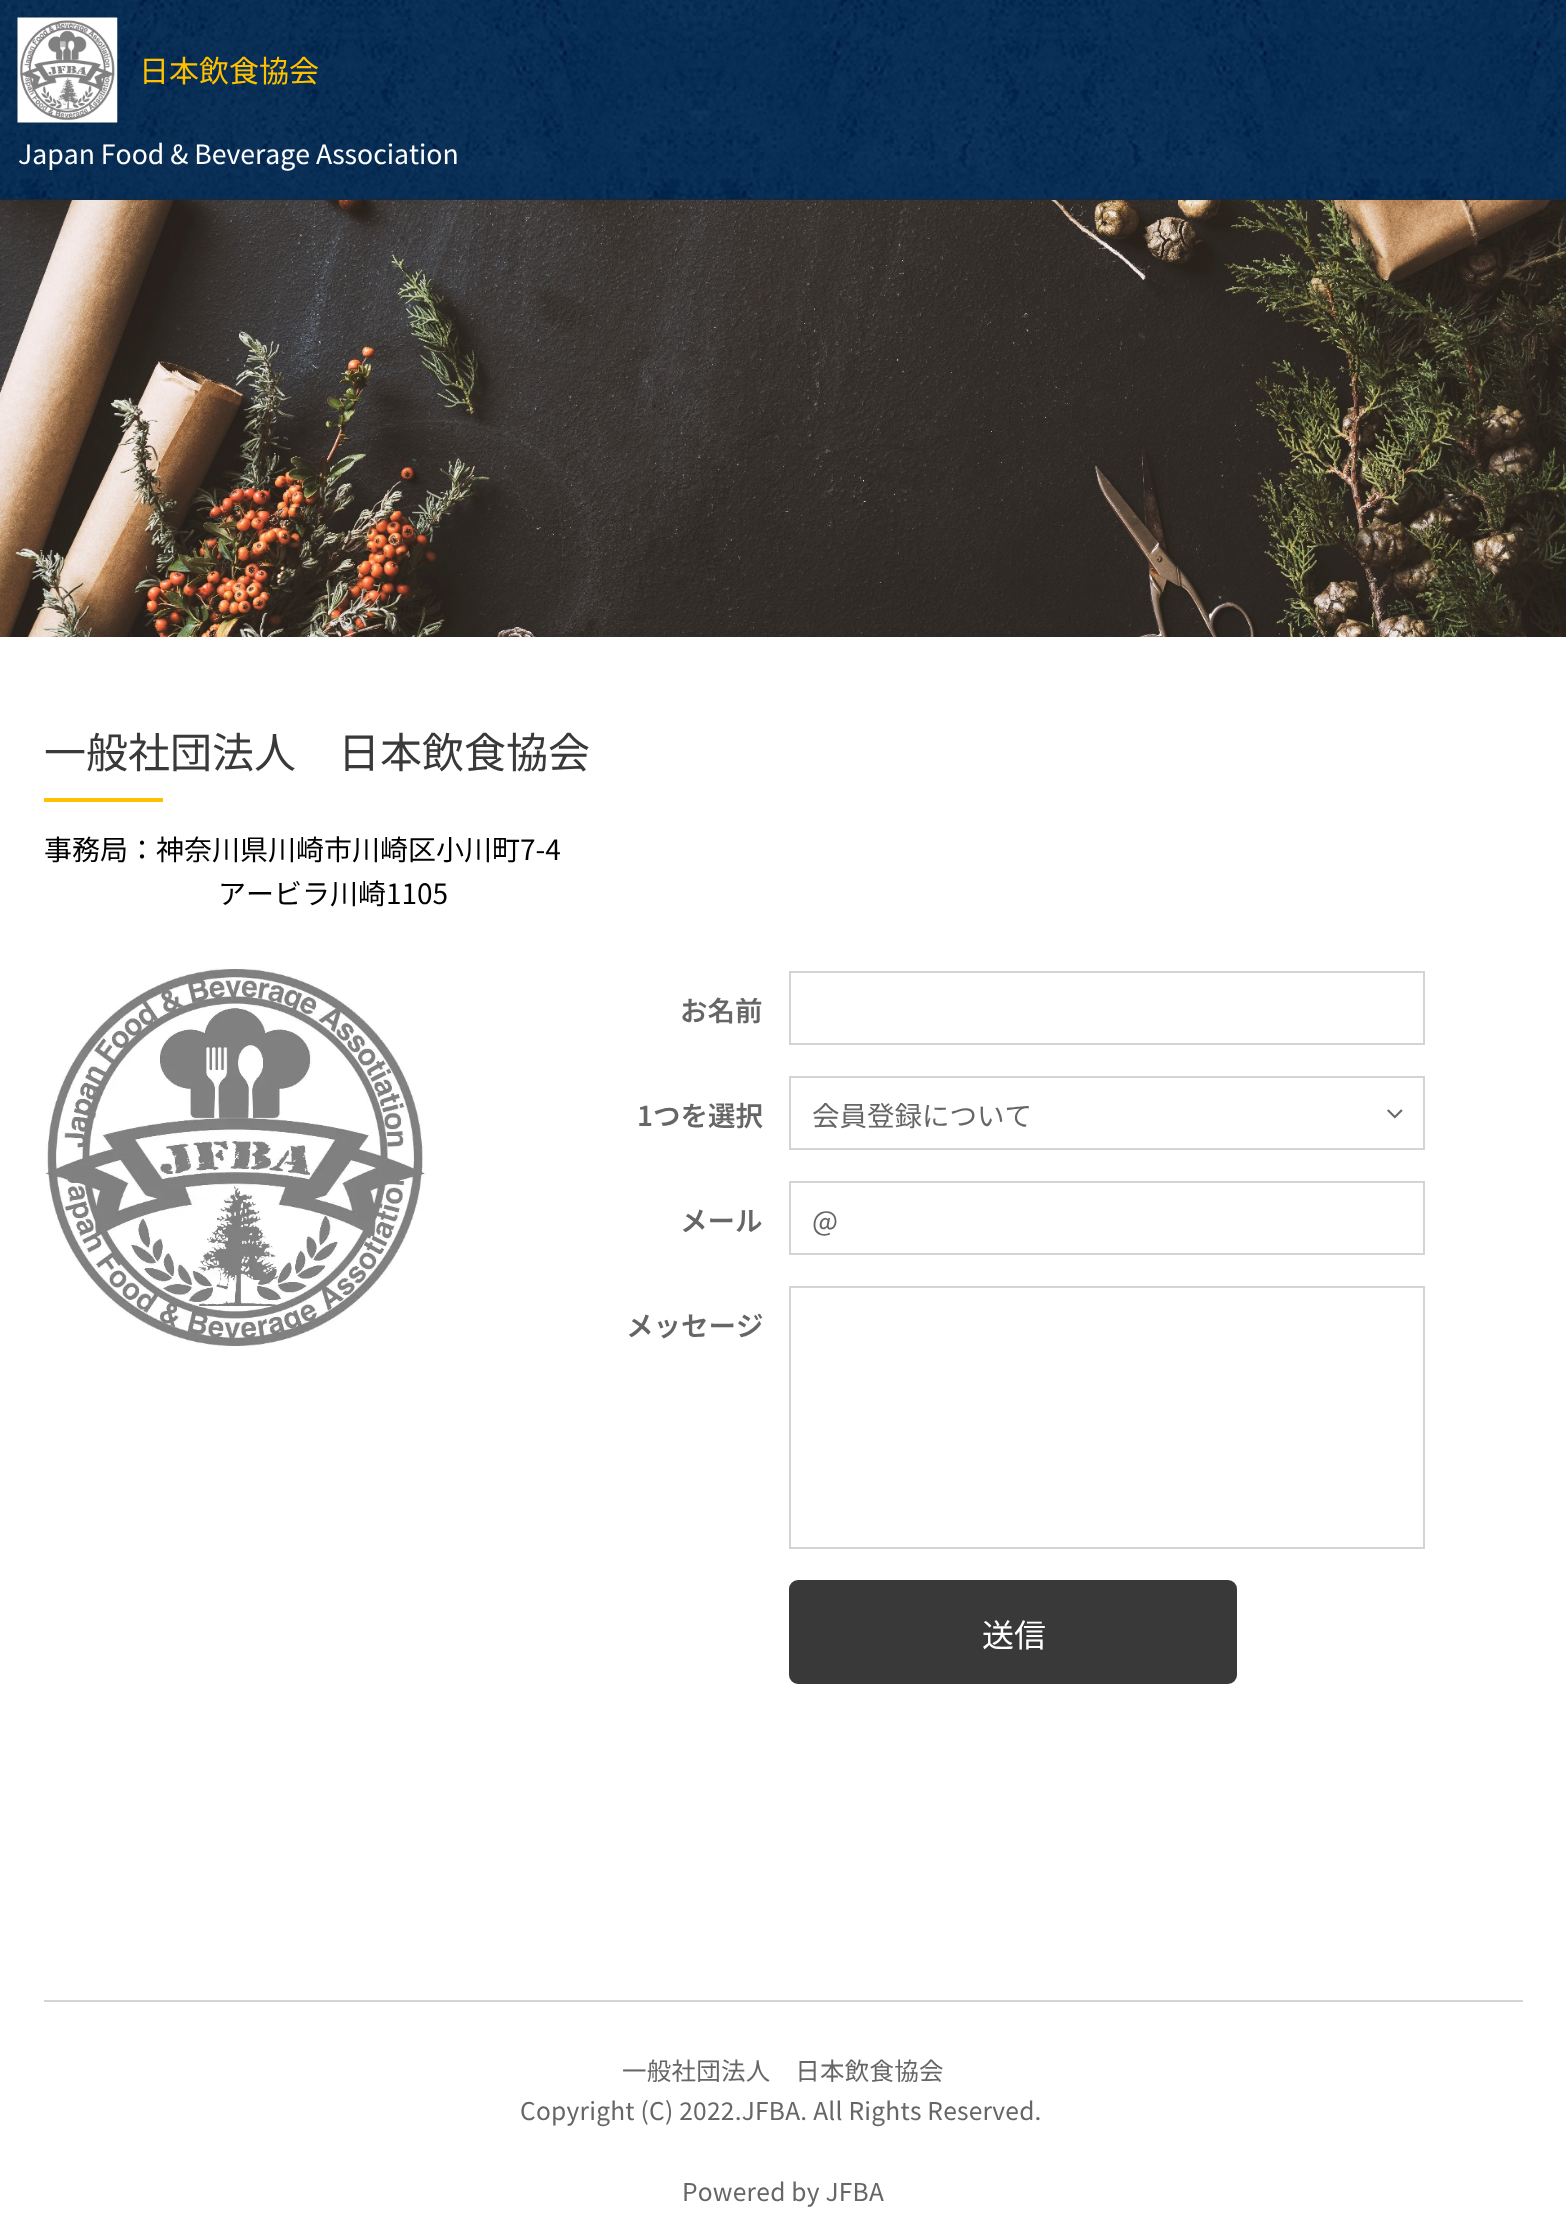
<svg xmlns="http://www.w3.org/2000/svg" width="1566" height="2235">
<style>*{font-kerning:none!important;font-variant-ligatures:none!important}</style>
<style>
.a{font:30px Noto Sans JP;fill:#ffc000}
.b{font:26.6px Noto Sans JP;fill:#fff}
.c{font:42px Noto Sans JP;fill:#393939}
.d{font:28px Noto Sans JP;fill:#000}
.e{font:600 27.5px Noto Sans JP;fill:#666}
.f{font:27.5px Noto Sans JP;fill:#666}
.g{font:32px Noto Sans JP;fill:#fff}
.h{font:24.5px Noto Sans JP;letter-spacing:0.25px;fill:#666}
</style>
<rect width="100%" height="100%" fill="#fff"/>
<path fill="#272727" d="M0 199h1566v1H0z"/>
<image href="1.png" x="0" y="0" width="1566" height="200"/>
<image href="2.png" x="17" y="17" width="101" height="106"/>
<image href="3.png" x="0" y="200" width="1566" height="437"/>
<path fill="#ffc000" d="M44 798h119v4H44z"/>
<image href="4.png" x="45" y="968" width="381" height="380"/>
<path fill="none" stroke="#d4d4d4" stroke-width="2" d="M790 972h634v72H790z"/>
<path fill="none" stroke="#d4d4d4" stroke-width="2" d="M790 1077h634v72H790z"/>
<image href="5.png" x="1387" y="1109" width="16" height="10"/>
<path fill="none" stroke="#d4d4d4" stroke-width="2" d="M790 1182h634v72H790z"/>
<path fill="none" stroke="#d4d4d4" stroke-width="2" d="M790 1287h634v261H790z"/>
<rect fill="#393939" stroke="#393939" stroke-width="2" x="790" y="1581" width="446" height="102" rx="8"/>
<path fill="#d4d4d4" d="M44 2000h1479v2H44z"/>
<text class="a" x="139" y="82">日本飲食協会</text>
<text class="b" x="18" y="164">Japan Food &amp; Beverage Association</text>
<text class="c" x="44" y="768">一般社団法人　日本飲食協会</text>
<text class="d" x="44" y="860">事務局：神奈川県川崎市川崎区小川町7-4</text>
<text class="d" x="218" y="904">アービラ川崎1105</text>
<text class="e" x="680" y="1021">お名前</text>
<text class="e" x="637" y="1126">1つを選択</text>
<text class="f" x="812" y="1126">会員登録について</text>
<text class="e" x="680" y="1231">メール</text>
<text class="f" x="812" y="1231">@</text>
<text class="e" x="626" y="1336">メッセージ</text>
<text class="g" x="982" y="1647">送信</text>
<text class="h" x="622" y="2080">一般社団法人　日本飲食協会</text>
<text class="h" x="520" y="2120">Copyright (C) 2022.JFBA. All Rights Reserved.</text>
<text class="h" x="682" y="2201">Powered by JFBA</text>
</svg>
